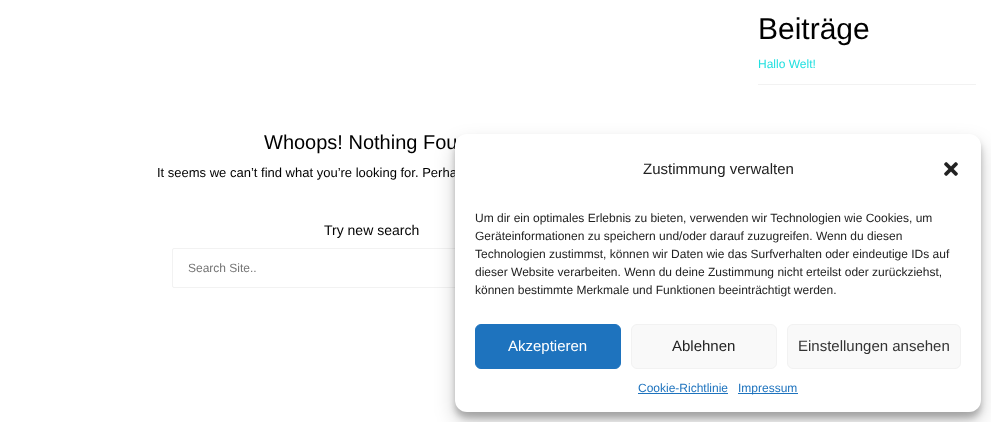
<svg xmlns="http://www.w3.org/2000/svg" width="991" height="422">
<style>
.a{font:30px Liberation Sans;fill:#000}
.b{font:12px Liberation Sans;fill:#23e0e0}
.c{font:20px Liberation Sans;fill:#000}
.d{font:13px Liberation Sans;fill:#000}
.e{font:14px Liberation Sans;fill:#000}
.f{font:12px Liberation Sans;fill:#757575}
.g{font:15px Liberation Sans;fill:#222}
.h{font:12px Liberation Sans;fill:#222}
.i{font:15px Liberation Sans;fill:#fff}
.j{font:15px Liberation Sans;fill:#333}
.k{font:12px Liberation Sans;fill:#1e73be}
</style>
<rect width="100%" height="100%" fill="#fff"/>
<path fill="#f2f2f2" d="M758 84h218v1H758z"/>
<rect fill="none" stroke="#f2f2f2" x="172.5" y="248.5" width="399" height="39" rx="1.5"/>
<rect fill="#0000003b" filter="blur(3px)" x="455" y="140" width="526" height="278" rx="12"/>
<rect fill="#00000030" filter="blur(10px)" x="455" y="144" width="526" height="278" rx="12"/>
<text class="a" x="758" y="39">Beiträge</text>
<text class="b" x="758" y="68">Hallo Welt!</text>
<text class="c" x="264" y="149">Whoops! Nothing Fou</text>
<text class="d" x="157" y="177">It seems we can’t find what you’re looking for. Perha</text>
<text class="e" x="324" y="235">Try new search</text>
<text class="f" x="188" y="272">Search Site..</text>
<rect fill="#fff" x="455" y="134" width="526" height="278" rx="12"/>
<text class="g" x="643" y="174">Zustimmung verwalten</text>
<image href="1.png" x="944" y="162" width="14" height="14"/>
<text class="h" x="475" y="222">Um dir ein optimales Erlebnis zu bieten, verwenden wir Technologien wie Cookies, um</text>
<text class="h" x="475" y="240">Geräteinformationen zu speichern und/oder darauf zuzugreifen. Wenn du diesen</text>
<text class="h" x="475" y="258">Technologien zustimmst, können wir Daten wie das Surfverhalten oder eindeutige IDs auf</text>
<text class="h" x="475" y="276">dieser Website verarbeiten. Wenn du deine Zustimmung nicht erteilst oder zurückziehst,</text>
<text class="h" x="475" y="294">können bestimmte Merkmale und Funktionen beeinträchtigt werden.</text>
<rect fill="#1e73be" stroke="#1e73be" x="475.5" y="324.5" width="145" height="44" rx="5.5"/>
<text class="i" x="508" y="351">Akzeptieren</text>
<rect fill="#f9f9f9" stroke="#f2f2f2" x="631.5" y="324.5" width="145" height="44" rx="5.5"/>
<text class="g" x="672" y="351">Ablehnen</text>
<rect fill="#f9f9f9" stroke="#f2f2f2" x="787.5" y="324.5" width="173" height="44" rx="5.5"/>
<text class="j" x="798" y="351">Einstellungen ansehen</text>
<text class="k" x="638" y="392">Cookie-Richtlinie</text>
<path fill="#1e73be" d="M638 393h90v1H638z"/>
<path fill="#1e73be" d="M738 393h60v1H738z"/>
<text class="k" x="738" y="392">Impressum</text>
</svg>
